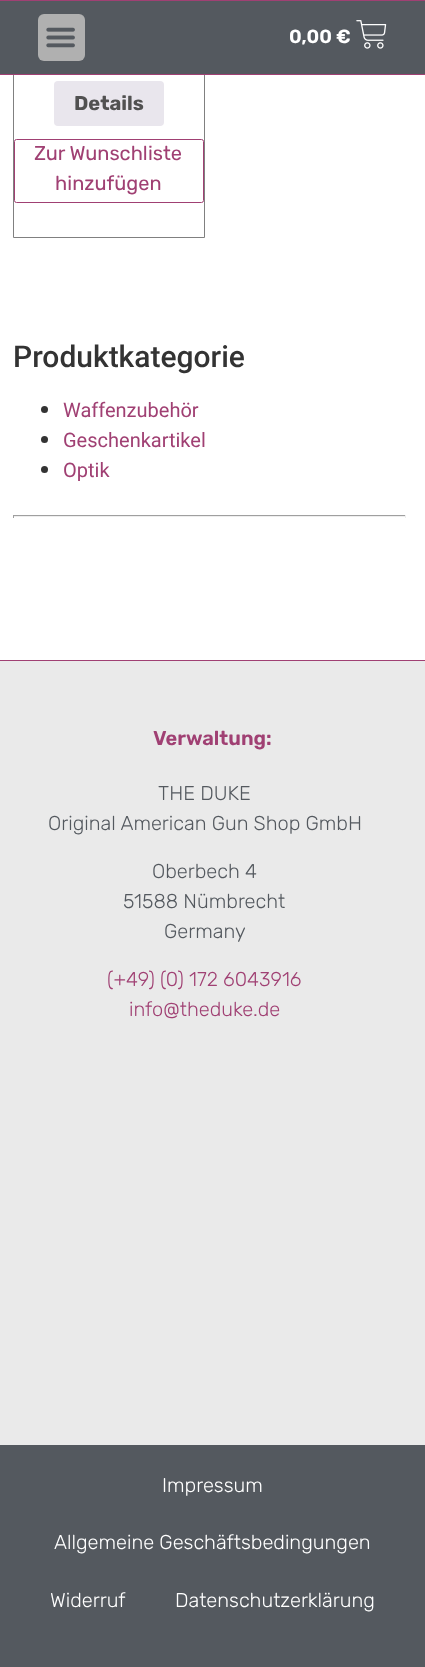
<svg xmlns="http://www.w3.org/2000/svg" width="425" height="1667">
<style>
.a{font:600 19px Rubik;fill:#fff}
.b{font:bold 20px Rubik;fill:#515151}
.c{font:20px Rubik;fill:#a04073}
.d{font:500 30px Roboto;fill:#333}
.e{font:20px Roboto;fill:#a04073}
.f{font:600 20px Rubik;fill:#a04073}
.g{font:300 20px Rubik;fill:#54595f}
.h{font:300 20px Rubik;fill:#a04073}
.i{font:300 20px Rubik;fill:#fff}
</style>
<rect width="100%" height="100%" fill="#fff"/>
<path fill="none" stroke="#808080" d="M13.5 -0.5h191v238H13.5z"/>
<path fill="#54595f" d="M0 1h425v73H0z"/>
<path fill="#a04073" d="M0 0h425v1H0z"/>
<path fill="#a04073" d="M0 74h425v1H0z"/>
<rect fill="#b0b0b0" x="38" y="14" width="47" height="47" rx="6"/>
<image href="1.png" x="46" y="27" width="29" height="21"/>
<image href="2.png" x="356" y="20" width="31" height="29"/>
<rect fill="#e9e6ed" x="54" y="81" width="110" height="45" rx="4"/>
<rect fill="none" stroke="#a04073" x="14.5" y="139.5" width="189" height="63" rx="2"/>
<circle fill="#333" cx="44.5" cy="409.5" r="3.5"/>
<circle fill="#333" cx="44.5" cy="439.5" r="3.5"/>
<circle fill="#333" cx="44.5" cy="469.5" r="3.5"/>
<path fill="#9f9f9f" d="M13 515h393v1H13z"/>
<path fill="#eee" d="M405 515h1v3H405z"/>
<path fill="#eee" d="M13 516h393v1H13z"/>
<path fill="#9f9f9f" d="M13 515h1v3H13z"/>
<path fill="#eaeaea" d="M0 661h425v784H0z"/>
<path fill="#a04073" d="M0 660h425v1H0z"/>
<path fill="#54595f" d="M0 1445h425v222H0z"/>
<text class="a" x="289" y="43">0,00 €</text>
<text class="b" x="74" y="110">Details</text>
<text class="c" x="34" y="160">Zur Wunschliste</text>
<text class="c" x="55" y="190">hinzufügen</text>
<text class="d" x="13" y="367">Produktkategorie</text>
<text class="e" x="63" y="417">Waffenzubehör</text>
<text class="e" x="63" y="447">Geschenkartikel</text>
<text class="e" x="63" y="477">Optik</text>
<text class="f" x="153" y="745">Verwaltung:</text>
<text class="g" x="158" y="800">THE DUKE</text>
<text class="g" x="48" y="830">Original American Gun Shop GmbH</text>
<text class="g" x="152" y="878">Oberbech 4</text>
<text class="g" x="123" y="908">51588 Nümbrecht</text>
<text class="g" x="164" y="938">Germany</text>
<text class="h" x="107" y="986">(+49) (0) 172 6043916</text>
<text class="h" x="129" y="1016">info@theduke.de</text>
<text class="i" x="162" y="1492">Impressum</text>
<text class="i" x="54" y="1549">Allgemeine Geschäftsbedingungen</text>
<text class="i" x="50" y="1607">Widerruf</text>
<text class="i" x="175" y="1607">Datenschutzerklärung</text>
</svg>
